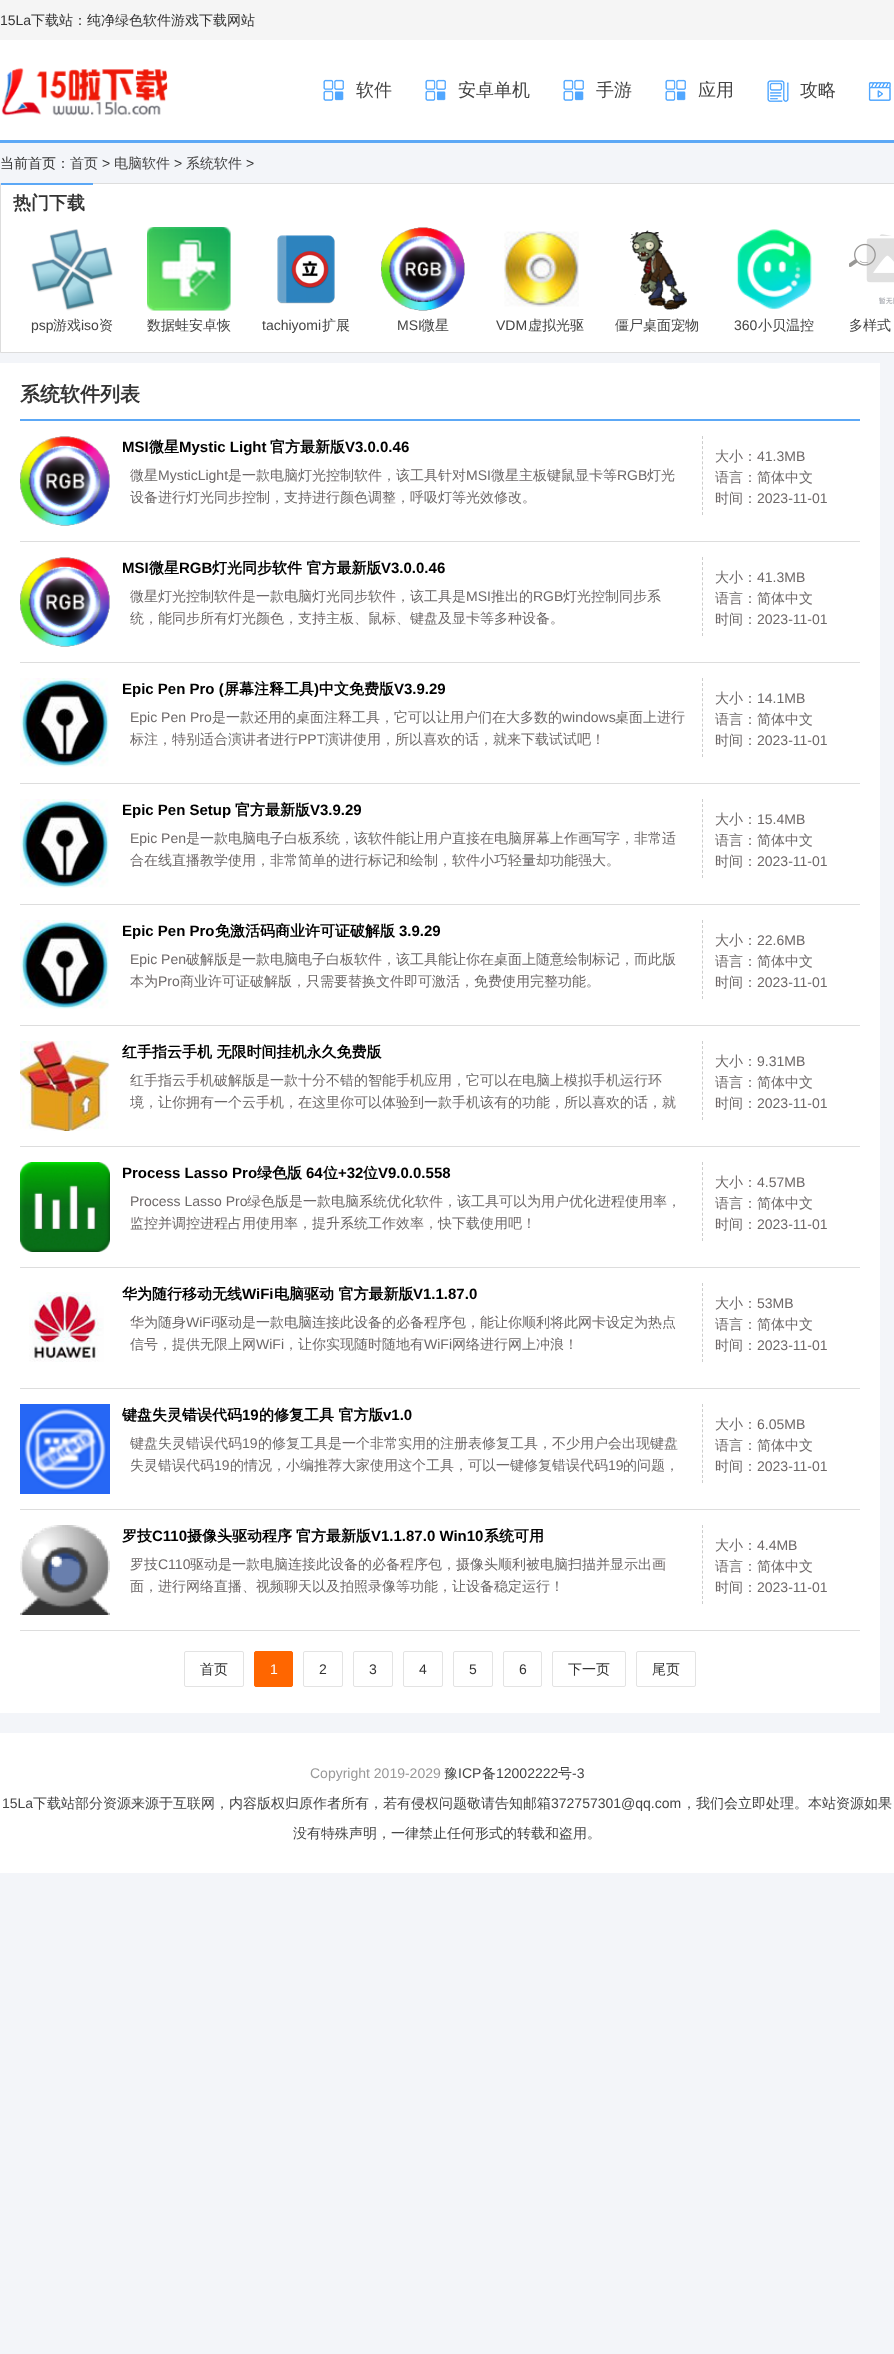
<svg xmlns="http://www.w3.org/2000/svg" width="894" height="2354">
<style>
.a{font:14px Liberation Sans;fill:#333}
.b{font:500 14px WenQuanYi Zen Hei;fill:#333}
.c{font:500 18px WenQuanYi Zen Hei;fill:#444}
.d{font:500 14px WenQuanYi Zen Hei;fill:#444}
.e{font:bold 18px WenQuanYi Zen Hei;fill:#333}
.f{font:14px Liberation Sans;fill:#444}
.g{font:bold 20px WenQuanYi Zen Hei;fill:#333}
.h{font:bold 15px Liberation Sans;fill:#000}
.i{font:bold 15px WenQuanYi Zen Hei;fill:#000}
.j{font:500 14px WenQuanYi Zen Hei;fill:#6d6868}
.k{font:14px Liberation Sans;fill:#6d6868}
.l{font:14px Liberation Sans;fill:#fff}
.m{font:14px Liberation Sans;fill:#989898}
</style>
<rect width="100%" height="100%" fill="#f3f5f9"/>
<path fill="#f5f5f5" d="M0 0h894v40H0z"/>
<path fill="#fff" d="M0 40h894v100H0z"/>
<path fill="#5ca8f6" d="M0 140h894v3H0z"/>
<image href="1.png" x="1" y="68" width="167" height="48"/>
<image href="2.png" x="323" y="79" width="21" height="22"/>
<image href="2.png" x="425" y="79" width="21" height="22"/>
<image href="2.png" x="563" y="79" width="21" height="22"/>
<image href="2.png" x="665" y="79" width="21" height="22"/>
<image href="3.png" x="767" y="80" width="22" height="22"/>
<image href="4.png" x="868" y="82" width="23" height="19"/>
<path fill="#fff" stroke="#ddd" d="M0.5 183.5h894v169H0.5z"/>
<path fill="#5ca8f6" d="M1 183h92v2H1z"/>
<image href="5.png" x="31" y="229" width="82" height="82"/>
<image href="6.png" x="147" y="227" width="84" height="84"/>
<image href="7.png" x="277" y="235" width="58" height="69"/>
<image href="8.png" x="381" y="227" width="84" height="84"/>
<image href="9.png" x="504" y="231" width="75" height="76"/>
<image href="10.png" x="630" y="230" width="57" height="80"/>
<image href="11.png" x="736" y="229" width="76" height="81"/>
<image href="12.png" x="849" y="234" width="45" height="70"/>
<path fill="#fff" d="M0 363h880v1350H0z"/>
<path fill="#5ca8f6" d="M20 419h840v2H20z"/>
<path fill="#ddd" d="M20 541h840v1H20z"/>
<image href="13.png" x="20" y="436" width="90" height="90"/>
<path fill="none" stroke="#ccc" stroke-dasharray="3 2.07" d="M702.5 436v79"/>
<path fill="#ddd" d="M20 662h840v1H20z"/>
<image href="13.png" x="20" y="557" width="90" height="90"/>
<path fill="none" stroke="#ccc" stroke-dasharray="3 2.07" d="M702.5 557v79"/>
<path fill="#ddd" d="M20 783h840v1H20z"/>
<image href="14.png" x="20" y="678" width="89" height="89"/>
<path fill="none" stroke="#ccc" stroke-dasharray="3 2.07" d="M702.5 678v79"/>
<path fill="#ddd" d="M20 904h840v1H20z"/>
<image href="14.png" x="20" y="799" width="89" height="89"/>
<path fill="none" stroke="#ccc" stroke-dasharray="3 2.07" d="M702.5 799v79"/>
<path fill="#ddd" d="M20 1025h840v1H20z"/>
<image href="14.png" x="20" y="920" width="89" height="89"/>
<path fill="none" stroke="#ccc" stroke-dasharray="3 2.07" d="M702.5 920v79"/>
<path fill="#ddd" d="M20 1146h840v1H20z"/>
<image href="15.png" x="20" y="1041" width="90" height="90"/>
<path fill="none" stroke="#ccc" stroke-dasharray="3 2.07" d="M702.5 1041v79"/>
<path fill="#ddd" d="M20 1267h840v1H20z"/>
<image href="16.png" x="20" y="1162" width="90" height="90"/>
<path fill="none" stroke="#ccc" stroke-dasharray="3 2.07" d="M702.5 1162v79"/>
<path fill="#ddd" d="M20 1388h840v1H20z"/>
<image href="17.png" x="29" y="1292" width="75" height="70"/>
<path fill="none" stroke="#ccc" stroke-dasharray="3 2.07" d="M702.5 1283v79"/>
<path fill="#ddd" d="M20 1509h840v1H20z"/>
<image href="18.png" x="20" y="1404" width="90" height="90"/>
<path fill="none" stroke="#ccc" stroke-dasharray="3 2.07" d="M702.5 1404v79"/>
<path fill="#ddd" d="M20 1630h840v1H20z"/>
<image href="19.png" x="20" y="1525" width="90" height="90"/>
<path fill="none" stroke="#ccc" stroke-dasharray="3 2.07" d="M702.5 1525v79"/>
<rect fill="none" stroke="#e3e3e3" x="184.5" y="1651.5" width="59" height="35" rx="1.5"/>
<rect fill="#f60" stroke="#f60" x="254.5" y="1651.5" width="38" height="35" rx="1.5"/>
<rect fill="none" stroke="#e3e3e3" x="303.5" y="1651.5" width="39" height="35" rx="1.5"/>
<rect fill="none" stroke="#e3e3e3" x="353.5" y="1651.5" width="39" height="35" rx="1.5"/>
<rect fill="none" stroke="#e3e3e3" x="403.5" y="1651.5" width="39" height="35" rx="1.5"/>
<rect fill="none" stroke="#e3e3e3" x="453.5" y="1651.5" width="39" height="35" rx="1.5"/>
<rect fill="none" stroke="#e3e3e3" x="503.5" y="1651.5" width="38" height="35" rx="1.5"/>
<rect fill="none" stroke="#e3e3e3" x="552.5" y="1651.5" width="73" height="35" rx="1.5"/>
<rect fill="none" stroke="#e3e3e3" x="636.5" y="1651.5" width="59" height="35" rx="1.5"/>
<path fill="#fff" d="M0 1733h894v140H0z"/>
<text class="a" x="0" y="25">15La</text>
<text class="b" x="31" y="25">下载站：纯净绿色软件游戏下载网站</text>
<text class="c" x="356" y="96">软件</text>
<text class="c" x="458" y="96">安卓单机</text>
<text class="c" x="596" y="96">手游</text>
<text class="c" x="698" y="96">应用</text>
<text class="c" x="800" y="96">攻略</text>
<text class="b" x="0" y="168">当前首页：</text>
<text class="d" x="70" y="168">首页</text>
<text class="a" x="102" y="168">&gt;</text>
<text class="d" x="114" y="168">电脑软件</text>
<text class="a" x="174" y="168">&gt;</text>
<text class="d" x="186" y="168">系统软件</text>
<text class="a" x="246" y="168">&gt;</text>
<text class="e" x="13" y="209">热门下载</text>
<text class="f" x="31" y="330">psp</text>
<text class="d" x="53" y="330">游戏</text>
<text class="f" x="81" y="330">iso</text>
<text class="d" x="99" y="330">资</text>
<text class="d" x="147" y="330">数据蛙安卓恢</text>
<text class="f" x="262" y="330">tachiyomi</text>
<text class="d" x="322" y="330">扩展</text>
<text class="f" x="397" y="330">MSI</text>
<text class="d" x="421" y="330">微星</text>
<text class="f" x="496" y="330">VDM</text>
<text class="d" x="528" y="330">虚拟光驱</text>
<text class="d" x="615" y="330">僵尸桌面宠物</text>
<text class="f" x="734" y="330">360</text>
<text class="d" x="758" y="330">小贝温控</text>
<text class="d" x="849" y="330">多样式</text>
<text class="g" x="20" y="401">系统软件列表</text>
<text class="h" x="122" y="452">MSI</text>
<text class="i" x="149" y="452">微星</text>
<text class="h" x="179" y="452">Mystic Light</text>
<text class="i" x="270" y="452">官方最新版</text>
<text class="h" x="345" y="452">V3.0.0.46</text>
<text class="j" x="715" y="461">大小：</text>
<text class="k" x="757" y="461">41.3MB</text>
<text class="j" x="715" y="482">语言：简体中文</text>
<text class="j" x="715" y="503">时间：</text>
<text class="k" x="757" y="503">2023-11-01</text>
<text class="j" x="130" y="480">微星</text>
<text class="k" x="158" y="480">MysticLight</text>
<text class="j" x="228" y="480">是一款电脑灯光控制软件，该工具针对</text>
<text class="k" x="466" y="480">MSI</text>
<text class="j" x="491" y="480">微星主板键鼠显卡等</text>
<text class="k" x="617" y="480">RGB</text>
<text class="j" x="647" y="480">灯光</text>
<text class="j" x="130" y="502">设备进行灯光同步控制，支持进行颜色调整，呼吸灯等光效修改。</text>
<text class="h" x="122" y="573">MSI</text>
<text class="i" x="149" y="573">微星</text>
<text class="h" x="179" y="573">RGB</text>
<text class="i" x="212" y="573">灯光同步软件 官方最新版</text>
<text class="h" x="381" y="573">V3.0.0.46</text>
<text class="j" x="130" y="601">微星灯光控制软件是一款电脑灯光同步软件，该工具是</text>
<text class="k" x="466" y="601">MSI</text>
<text class="j" x="491" y="601">推出的</text>
<text class="k" x="533" y="601">RGB</text>
<text class="j" x="563" y="601">灯光控制同步系</text>
<text class="j" x="130" y="623">统，能同步所有灯光颜色，支持主板、鼠标、键盘及显卡等多种设备。</text>
<text class="j" x="715" y="582">大小：</text>
<text class="k" x="757" y="582">41.3MB</text>
<text class="j" x="715" y="603">语言：简体中文</text>
<text class="j" x="715" y="624">时间：</text>
<text class="k" x="757" y="624">2023-11-01</text>
<text class="h" x="122" y="694">Epic Pen Pro (</text>
<text class="i" x="224" y="694">屏幕注释工具</text>
<text class="h" x="314" y="694">)</text>
<text class="i" x="319" y="694">中文免费版</text>
<text class="h" x="394" y="694">V3.9.29</text>
<text class="j" x="715" y="703">大小：</text>
<text class="k" x="757" y="703">14.1MB</text>
<text class="j" x="715" y="724">语言：简体中文</text>
<text class="j" x="715" y="745">时间：</text>
<text class="k" x="757" y="745">2023-11-01</text>
<text class="k" x="130" y="722">Epic Pen Pro</text>
<text class="j" x="212" y="722">是一款还用的桌面注释工具，它可以让用户们在大多数的</text>
<text class="k" x="562" y="722">windows</text>
<text class="j" x="615" y="722">桌面上进行</text>
<text class="j" x="130" y="744">标注，特别适合演讲者进行</text>
<text class="k" x="298" y="744">PPT</text>
<text class="j" x="325" y="744">演讲使用，所以喜欢的话，就来下载试试吧！</text>
<text class="h" x="122" y="815">Epic Pen Setup</text>
<text class="i" x="235" y="815">官方最新版</text>
<text class="h" x="310" y="815">V3.9.29</text>
<text class="j" x="715" y="824">大小：</text>
<text class="k" x="757" y="824">15.4MB</text>
<text class="j" x="715" y="845">语言：简体中文</text>
<text class="j" x="715" y="866">时间：</text>
<text class="k" x="757" y="866">2023-11-01</text>
<text class="k" x="130" y="843">Epic Pen</text>
<text class="j" x="186" y="843">是一款电脑电子白板系统，该软件能让用户直接在电脑屏幕上作画写字，非常适</text>
<text class="j" x="130" y="865">合在线直播教学使用，非常简单的进行标记和绘制，软件小巧轻量却功能强大。</text>
<text class="h" x="122" y="936">Epic Pen Pro</text>
<text class="i" x="215" y="936">免激活码商业许可证破解版</text>
<text class="h" x="399" y="936">3.9.29</text>
<text class="j" x="715" y="945">大小：</text>
<text class="k" x="757" y="945">22.6MB</text>
<text class="j" x="715" y="966">语言：简体中文</text>
<text class="j" x="715" y="987">时间：</text>
<text class="k" x="757" y="987">2023-11-01</text>
<text class="k" x="130" y="964">Epic Pen</text>
<text class="j" x="186" y="964">破解版是一款电脑电子白板软件，该工具能让你在桌面上随意绘制标记，而此版</text>
<text class="j" x="130" y="986">本为</text>
<text class="k" x="158" y="986">Pro</text>
<text class="j" x="180" y="986">商业许可证破解版，只需要替换文件即可激活，免费使用完整功能。</text>
<text class="i" x="122" y="1057">红手指云手机 无限时间挂机永久免费版</text>
<text class="j" x="130" y="1085">红手指云手机破解版是一款十分不错的智能手机应用，它可以在电脑上模拟手机运行环</text>
<text class="j" x="130" y="1107">境，让你拥有一个云手机，在这里你可以体验到一款手机该有的功能，所以喜欢的话，就</text>
<text class="j" x="715" y="1066">大小：</text>
<text class="k" x="757" y="1066">9.31MB</text>
<text class="j" x="715" y="1087">语言：简体中文</text>
<text class="j" x="715" y="1108">时间：</text>
<text class="k" x="757" y="1108">2023-11-01</text>
<text class="h" x="122" y="1178">Process Lasso Pro</text>
<text class="i" x="257" y="1178">绿色版</text>
<text class="h" x="306" y="1178">64</text>
<text class="i" x="323" y="1178">位</text>
<text class="h" x="338" y="1178">+32</text>
<text class="i" x="363" y="1178">位</text>
<text class="h" x="378" y="1178">V9.0.0.558</text>
<text class="k" x="130" y="1206">Process Lasso Pro</text>
<text class="j" x="247" y="1206">绿色版是一款电脑系统优化软件，该工具可以为用户优化进程使用率，</text>
<text class="j" x="130" y="1228">监控并调控进程占用使用率，提升系统工作效率，快下载使用吧！</text>
<text class="j" x="715" y="1187">大小：</text>
<text class="k" x="757" y="1187">4.57MB</text>
<text class="j" x="715" y="1208">语言：简体中文</text>
<text class="j" x="715" y="1229">时间：</text>
<text class="k" x="757" y="1229">2023-11-01</text>
<text class="i" x="122" y="1299">华为随行移动无线</text>
<text class="h" x="242" y="1299">WiFi</text>
<text class="i" x="274" y="1299">电脑驱动 官方最新版</text>
<text class="h" x="413" y="1299">V1.1.87.0</text>
<text class="j" x="130" y="1327">华为随身</text>
<text class="k" x="186" y="1327">WiFi</text>
<text class="j" x="214" y="1327">驱动是一款电脑连接此设备的必备程序包，能让你顺利将此网卡设定为热点</text>
<text class="j" x="130" y="1349">信号，提供无限上网</text>
<text class="k" x="256" y="1349">WiFi</text>
<text class="j" x="284" y="1349">，让你实现随时随地有</text>
<text class="k" x="424" y="1349">WiFi</text>
<text class="j" x="452" y="1349">网络进行网上冲浪！</text>
<text class="j" x="715" y="1308">大小：</text>
<text class="k" x="757" y="1308">53MB</text>
<text class="j" x="715" y="1329">语言：简体中文</text>
<text class="j" x="715" y="1350">时间：</text>
<text class="k" x="757" y="1350">2023-11-01</text>
<text class="i" x="122" y="1420">键盘失灵错误代码</text>
<text class="h" x="242" y="1420">19</text>
<text class="i" x="259" y="1420">的修复工具 官方版</text>
<text class="h" x="383" y="1420">v1.0</text>
<text class="j" x="130" y="1448">键盘失灵错误代码</text>
<text class="k" x="242" y="1448">19</text>
<text class="j" x="258" y="1448">的修复工具是一个非常实用的注册表修复工具，不少用户会出现键盘</text>
<text class="j" x="130" y="1470">失灵错误代码</text>
<text class="k" x="214" y="1470">19</text>
<text class="j" x="230" y="1470">的情况，小编推荐大家使用这个工具，可以一键修复错误代码</text>
<text class="k" x="608" y="1470">19</text>
<text class="j" x="623" y="1470">的问题，</text>
<text class="j" x="715" y="1429">大小：</text>
<text class="k" x="757" y="1429">6.05MB</text>
<text class="j" x="715" y="1450">语言：简体中文</text>
<text class="j" x="715" y="1471">时间：</text>
<text class="k" x="757" y="1471">2023-11-01</text>
<text class="i" x="122" y="1541">罗技</text>
<text class="h" x="152" y="1541">C110</text>
<text class="i" x="187" y="1541">摄像头驱动程序</text>
<text class="i" x="296" y="1541">官方最新版</text>
<text class="h" x="371" y="1541">V1.1.87.0 Win10</text>
<text class="i" x="484" y="1541">系统可用</text>
<text class="j" x="130" y="1569">罗技</text>
<text class="k" x="158" y="1569">C110</text>
<text class="j" x="190" y="1569">驱动是一款电脑连接此设备的必备程序包，摄像头顺利被电脑扫描并显示出画</text>
<text class="j" x="130" y="1591">面，进行网络直播、视频聊天以及拍照录像等功能，让设备稳定运行！</text>
<text class="j" x="715" y="1550">大小：</text>
<text class="k" x="757" y="1550">4.4MB</text>
<text class="j" x="715" y="1571">语言：简体中文</text>
<text class="j" x="715" y="1592">时间：</text>
<text class="k" x="757" y="1592">2023-11-01</text>
<text class="b" x="200" y="1674">首页</text>
<text class="l" x="270" y="1674">1</text>
<text class="a" x="319" y="1674">2</text>
<text class="a" x="369" y="1674">3</text>
<text class="a" x="419" y="1674">4</text>
<text class="a" x="469" y="1674">5</text>
<text class="a" x="519" y="1674">6</text>
<text class="b" x="568" y="1674">下一页</text>
<text class="b" x="652" y="1674">尾页</text>
<text class="m" x="310" y="1778">Copyright 2019-2029</text>
<text class="d" x="444" y="1778">豫</text>
<text class="f" x="458" y="1778">ICP</text>
<text class="d" x="482" y="1778">备</text>
<text class="f" x="496" y="1778">12002222</text>
<text class="d" x="558" y="1778">号</text>
<text class="f" x="572" y="1778">-3</text>
<text class="f" x="2" y="1808">15La</text>
<text class="d" x="33" y="1808">下载站部分资源来源于互联网，内容版权归原作者所有，若有侵权问题敬请告知邮箱</text>
<text class="f" x="551" y="1808">372757301@qq.com</text>
<text class="d" x="682" y="1808">，我们会立即处理。本站资源如果</text>
<text class="d" x="293" y="1838">没有特殊声明，一律禁止任何形式的转载和盗用。</text>
</svg>
